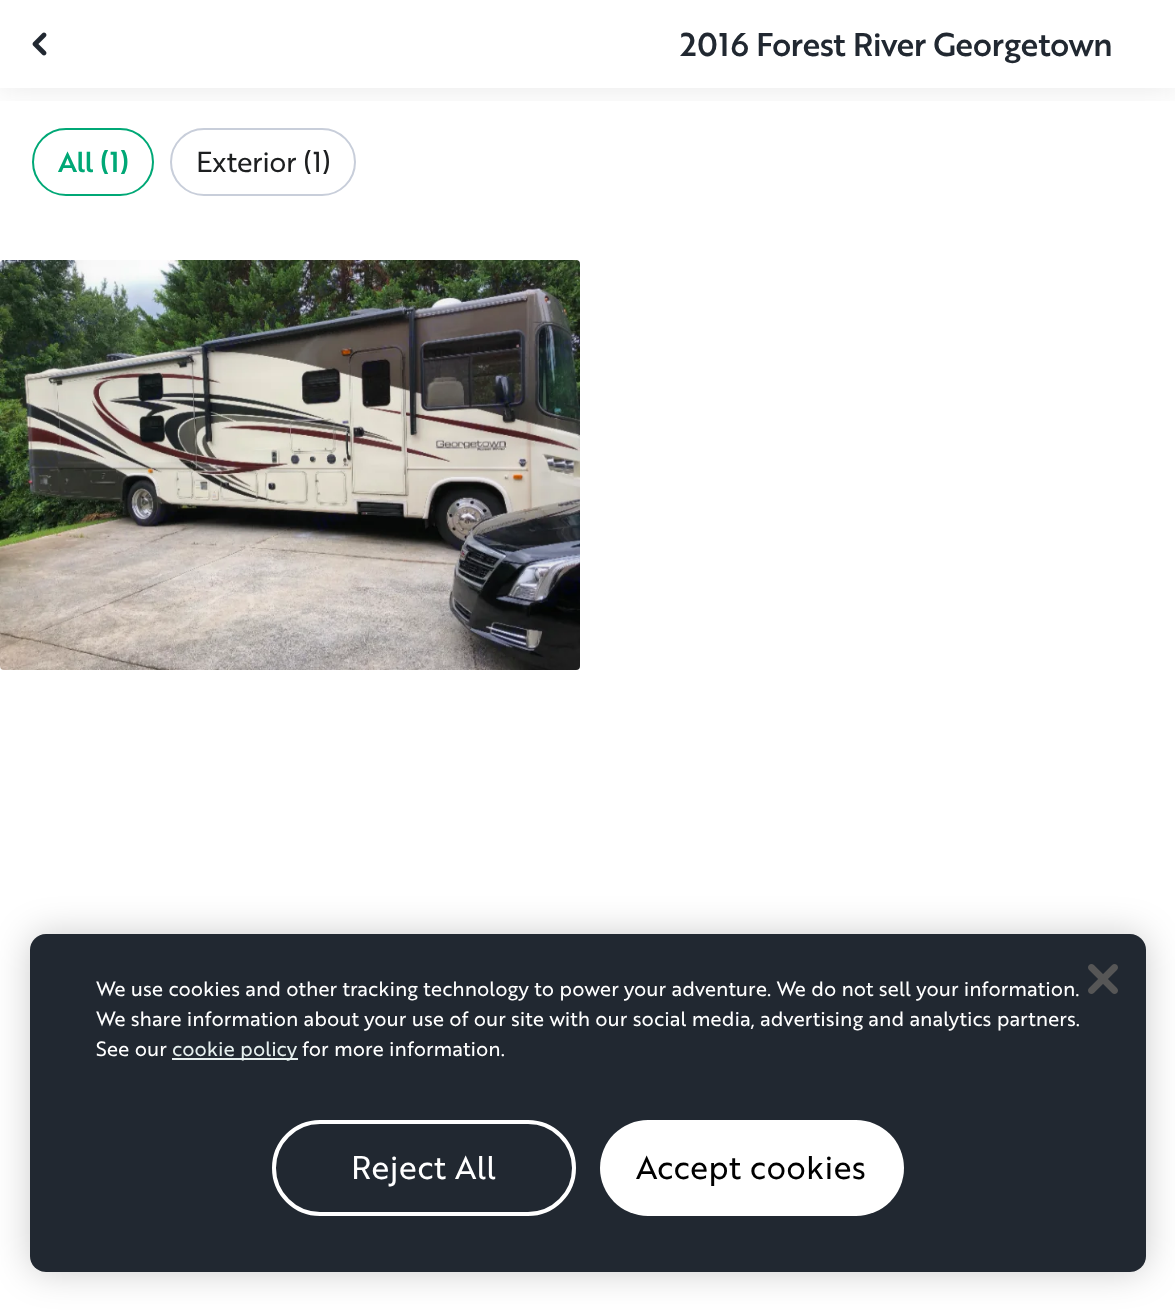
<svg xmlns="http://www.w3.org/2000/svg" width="1175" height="1311">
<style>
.a{font:500 32px 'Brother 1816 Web';letter-spacing:-0.65px;fill:#212831}
.b{font:500 28px 'Brother 1816 Web';letter-spacing:-0.5px;fill:#00a876}
.c{font:28px 'Brother 1816 Web';letter-spacing:-0.5px;fill:#1d1f20}
.d{font:20px 'Brother 1816 Web';fill:#fff}
.e{font:20px 'Brother 1816 Web';fill:#e6f0ef}
.f{font:32px 'Brother 1816 Web';letter-spacing:0.25px;fill:#fff}
.g{font:32px 'Brother 1816 Web';letter-spacing:0.25px;fill:#000}
</style>
<defs>
<clipPath id="clip1"><path d="M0 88h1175v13H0z"/></clipPath>
</defs>
<rect width="100%" height="100%" fill="#fff"/>
<rect fill="none" stroke="#00a876" stroke-width="2" x="33" y="129" width="120" height="66" rx="33"/>
<rect fill="none" stroke="#c8ceda" stroke-width="2" x="171" y="129" width="184" height="66" rx="33"/>
<g clip-path="url(#clip1)">
<path fill="#0f0f0f1a" filter="blur(16px)" d="M0 0h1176v88H0z"/>
</g>
<image href="1.png" x="32" y="32" width="15" height="24"/>
<image href="2.png" x="0" y="260" width="580" height="410"/>
<rect fill="#00000033" filter="blur(18px)" x="30" y="934" width="1116" height="338" rx="16"/>
<rect fill="#212831" x="30" y="934" width="1116" height="338" rx="16"/>
<path fill="#e6f0ef" d="M172 1058h126v2H172z"/>
<rect fill="none" stroke="#fff" stroke-width="4" x="274" y="1122" width="300" height="92" rx="46"/>
<rect fill="#fff" x="600" y="1120" width="304" height="96" rx="48"/>
<image href="3.png" x="1088" y="964" width="30" height="30"/>
<text class="a" x="680" y="56">2016 Forest River Georgetown</text>
<text class="b" x="58" y="172">All (1)</text>
<text class="c" x="196" y="172">Exterior (1)</text>
<text class="d" x="96" y="996">We use cookies and other tracking technology to power your adventure. We do not sell your information.</text>
<text class="d" x="96" y="1026">We share information about your use of our site with our social media, advertising and analytics partners.</text>
<text class="d" x="96" y="1056">See our</text>
<text class="e" x="172" y="1056">cookie policy</text>
<text class="d" x="302" y="1056">for more information.</text>
<text class="f" x="351" y="1179">Reject All</text>
<text class="g" x="636" y="1179">Accept cookies</text>
</svg>
